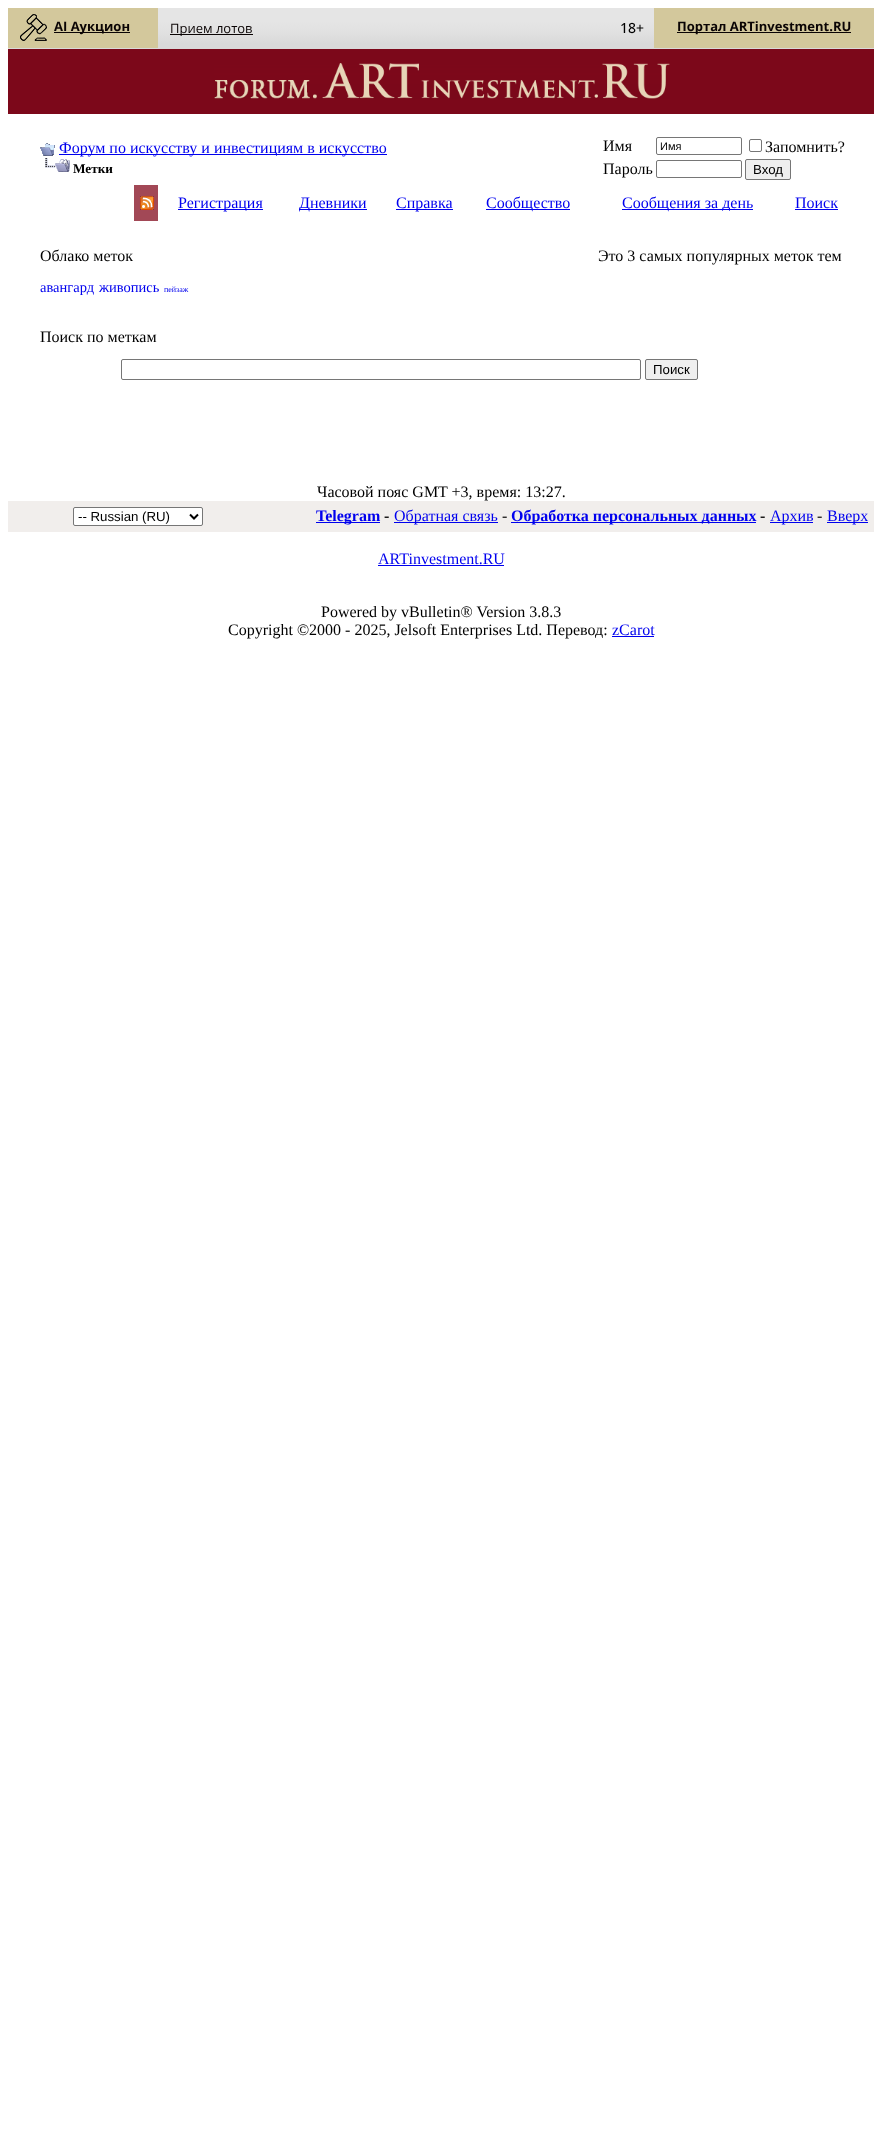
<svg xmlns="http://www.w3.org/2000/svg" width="882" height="2141">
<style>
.a{font:bold 13px Open Sans;fill:#0a0404}
.b{font:13px Open Sans;fill:#0a0404}
.c{font:500 14px Open Sans;fill:#000}
.d{font:16px Liberation Serif;fill:#00e}
.e{font:bold 13.25px Liberation Serif;fill:#000}
.f{font:16px Liberation Serif;fill:#000}
.g{font:11px Liberation Sans;fill:#000}
.h{font:13.25px Liberation Sans;fill:#000}
.i{font:14.5px Liberation Serif;fill:#00e}
.j{font:8px Liberation Serif;fill:#00e}
.k{font:bold 16px Liberation Serif;fill:#00e}
.l{font:bold 16px Liberation Serif;fill:#000}
</style>
<defs>
<linearGradient id="g1" gradientUnits="userSpaceOnUse" x1="441" y1="8" x2="441" y2="49"><stop offset="0" stop-color="#e5e5e5"/><stop offset="0.33" stop-color="#e5e5e5"/><stop offset="0.58" stop-color="#e1e1e1"/><stop offset="0.88" stop-color="#d9d9d9"/><stop offset="1" stop-color="#d9d9d9"/></linearGradient>
</defs>
<rect width="100%" height="100%" fill="#fff"/>
<path fill="url(#g1)" d="M8 8h866v41H8z"/>
<path fill="#d3c89c" d="M8 8h150v40H8z"/>
<image href="1.png" x="20" y="14" width="27" height="27"/>
<path fill="#0a0404" d="M54 32h76v1H54z"/>
<path fill="#0a0404" d="M170 34h83v1H170z"/>
<path fill="#d3c89c" d="M654 8h220v40H654z"/>
<path fill="#0a0404" d="M677 32h174v1H677z"/>
<path fill="#7c081a" d="M8 49h866v65H8z"/>
<image href="2.png" x="214" y="63" width="456" height="36"/>
<image href="3.png" x="40" y="143" width="15" height="13"/>
<path fill="#00e" d="M59 154h328v1H59z"/>
<image href="4.png" x="45" y="158" width="25" height="14"/>
<rect fill="none" stroke="#767676" x="656.5" y="137.5" width="85" height="17" rx="1.5"/>
<rect fill="none" stroke="#767676" x="749.5" y="139.5" width="12" height="12" rx="1.5"/>
<rect fill="none" stroke="#767676" x="656.5" y="160.5" width="85" height="17" rx="1.5"/>
<rect fill="#efefef" stroke="#767676" x="745.5" y="159.5" width="45" height="20" rx="1.5"/>
<path fill="#a24856" d="M134 185h24v36H134z"/>
<image href="5.png" x="140" y="196" width="14" height="14"/>
<path fill="#00e" d="M178 209h85v1H178z"/>
<path fill="#00e" d="M299 209h68v1H299z"/>
<path fill="#00e" d="M396 209h57v1H396z"/>
<path fill="#00e" d="M486 209h84v1H486z"/>
<path fill="#00e" d="M622 209h131v1H622z"/>
<path fill="#00e" d="M795 209h43v1H795z"/>
<rect fill="none" stroke="#767676" x="121.5" y="359.5" width="519" height="20" rx="1.5"/>
<rect fill="#efefef" stroke="#767676" x="645.5" y="359.5" width="52" height="20" rx="1.5"/>
<path fill="#f1eeec" d="M8 501h866v31H8z"/>
<rect fill="#fff" stroke="#767676" x="73.5" y="507.5" width="129" height="18" rx="1.5"/>
<path fill="none" stroke="#000" stroke-width="2" d="M190 514.5l4 4l4-4"/>
<path fill="#00e" d="M316 522h64v1H316z"/>
<path fill="#00e" d="M394 522h104v1H394z"/>
<path fill="#00e" d="M511 522h245v1H511z"/>
<path fill="#00e" d="M770 522h43v1H770z"/>
<path fill="#00e" d="M827 522h41v1H827z"/>
<path fill="#00e" d="M378 565h126v1H378z"/>
<path fill="#00e" d="M612 636h42v1H612z"/>
<text class="a" x="54" y="31">AI Аукцион</text>
<text class="b" x="170" y="33">Прием лотов</text>
<text class="c" x="620" y="33">18+</text>
<text class="a" x="677" y="31">Портал ARTinvestment.RU</text>
<text class="d" x="59" y="153">Форум по искусству и инвестициям в искусство</text>
<text class="e" x="73" y="173">Метки</text>
<text class="f" x="603" y="151">Имя</text>
<text class="g" x="660" y="150">Имя</text>
<text class="f" x="765" y="152">Запомнить?</text>
<text class="f" x="603" y="174">Пароль</text>
<text class="h" x="753" y="174">Вход</text>
<text class="d" x="178" y="208">Регистрация</text>
<text class="d" x="299" y="208">Дневники</text>
<text class="d" x="396" y="208">Справка</text>
<text class="d" x="486" y="208">Сообщество</text>
<text class="d" x="622" y="208">Сообщения за день</text>
<text class="d" x="795" y="208">Поиск</text>
<text class="f" x="40" y="261">Облако меток</text>
<text class="f" x="598" y="261">Это 3 самых популярных меток тем</text>
<text class="i" x="40" y="292">авангард</text>
<text class="i" x="99" y="292">живопись</text>
<text class="j" x="164" y="292">пейзаж</text>
<text class="f" x="40" y="342">Поиск по меткам</text>
<text class="h" x="653" y="374">Поиск</text>
<text class="f" x="317" y="497">Часовой пояс GMT +3, время: 13:27.</text>
<text class="h" x="78" y="521">-- Russian (RU)</text>
<text class="k" x="316" y="521">Telegram</text>
<text class="l" x="384" y="521">-</text>
<text class="d" x="394" y="521">Обратная связь</text>
<text class="f" x="502" y="521">-</text>
<text class="k" x="511" y="521">Обработка персональных данных</text>
<text class="l" x="760" y="521">-</text>
<text class="d" x="770" y="521">Архив</text>
<text class="f" x="817" y="521">-</text>
<text class="d" x="827" y="521">Вверх</text>
<text class="d" x="378" y="564">ARTinvestment.RU</text>
<text class="f" x="321" y="617">Powered by vBulletin® Version 3.8.3</text>
<text class="f" x="228" y="635">Copyright ©2000 - 2025, Jelsoft Enterprises Ltd. Перевод:</text>
<text class="d" x="612" y="635">zCarot</text>
</svg>
